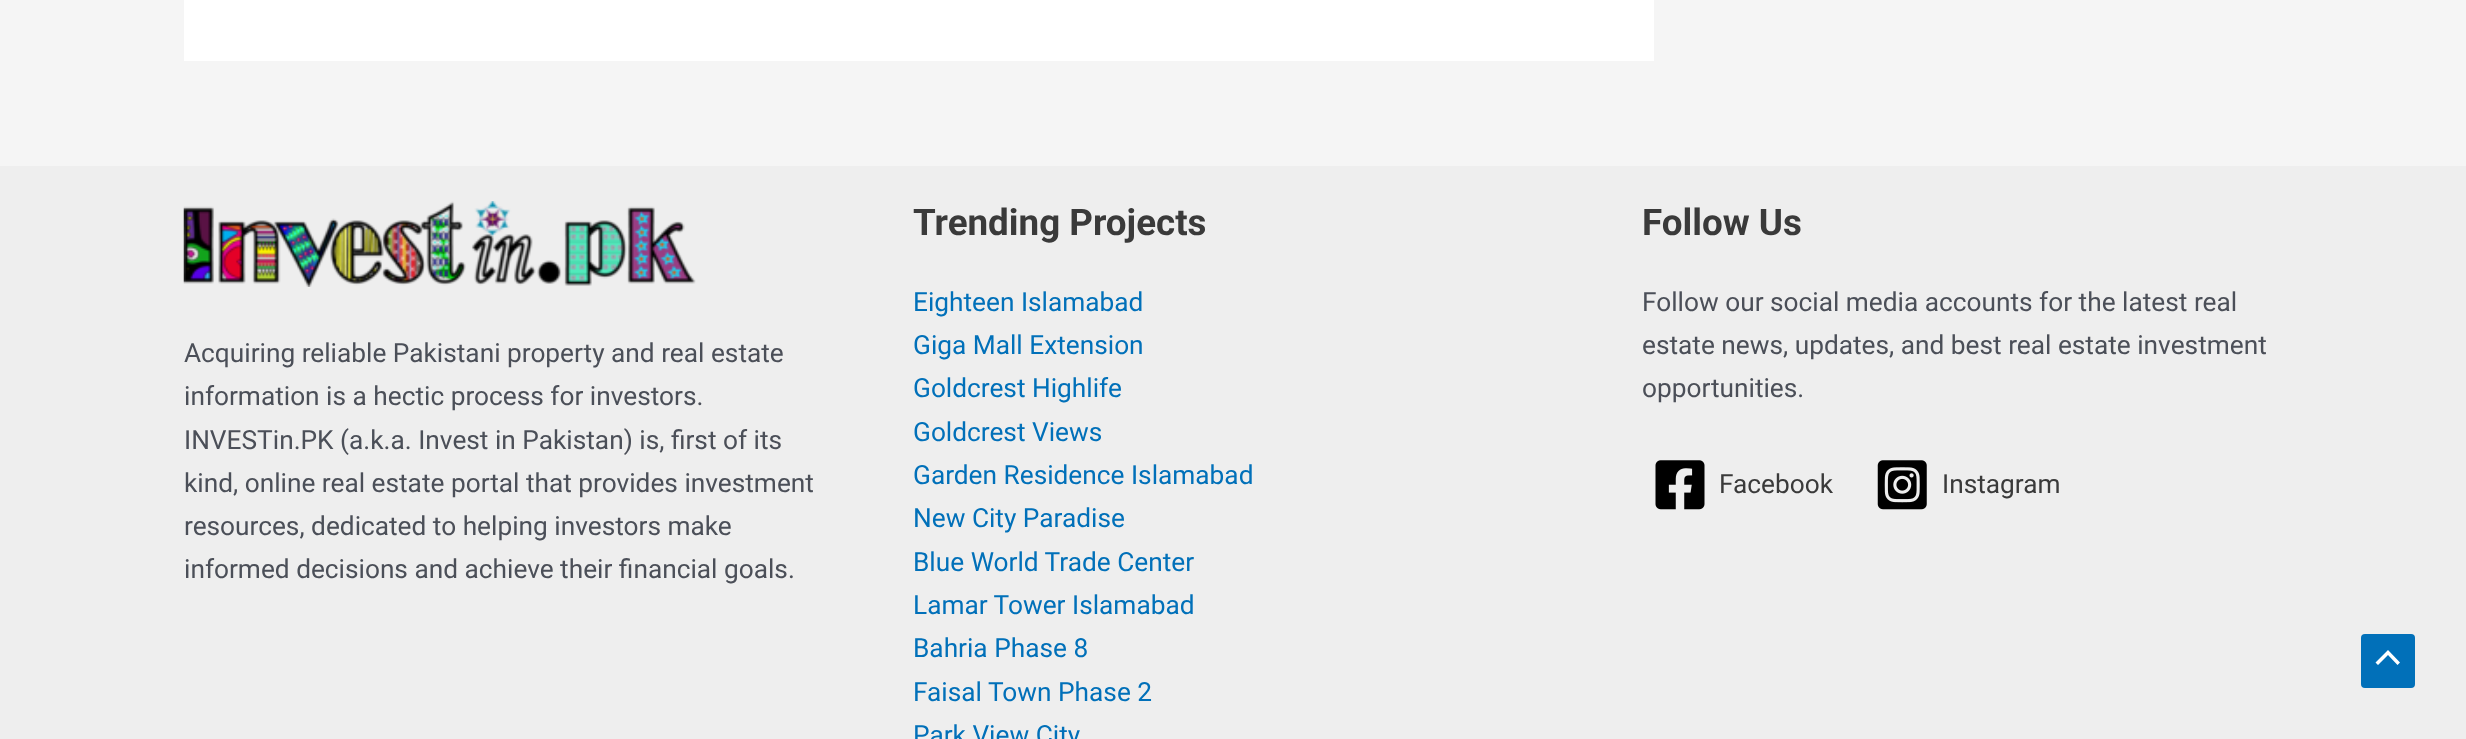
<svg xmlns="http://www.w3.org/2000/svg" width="2466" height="739">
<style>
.a{font:26.25px Roboto;fill:#4b4f58}
.b{font:bold 36.75px Roboto;fill:#3a3a3a}
.c{font:26.25px Roboto;fill:#0170b9}
.d{font:26.25px Roboto;fill:#3a3a3a}
</style>
<rect width="100%" height="100%" fill="#f5f5f5"/>
<path fill="#fff" d="M184 0h1470v61H184z"/>
<path fill="#eee" d="M0 166h2466v573H0z"/>
<image href="1.png" x="183" y="201" width="513" height="86"/>
<image href="2.png" x="1655" y="460" width="50" height="50"/>
<image href="3.png" x="1877" y="460" width="50" height="50"/>
<rect fill="#0170b9" x="2361" y="634" width="54" height="54" rx="4"/>
<path fill="#fff" d="M2400 662.5l-12-12.5l-12.5 12.5l2.5 2.5l10-10l9.5 10z"/>
<text class="a" x="184" y="362">Acquiring reliable Pakistani property and real estate</text>
<text class="a" x="184" y="405">information is a hectic process for investors.</text>
<text class="a" x="184" y="449">INVESTin.PK (a.k.a. Invest in Pakistan) is, first of its</text>
<text class="a" x="184" y="492">kind, online real estate portal that provides investment</text>
<text class="a" x="184" y="535">resources, dedicated to helping investors make</text>
<text class="a" x="184" y="578">informed decisions and achieve their financial goals.</text>
<text class="b" x="913" y="235">Trending Projects</text>
<text class="c" x="913" y="311">Eighteen Islamabad</text>
<text class="c" x="913" y="354">Giga Mall Extension</text>
<text class="c" x="913" y="397">Goldcrest Highlife</text>
<text class="c" x="913" y="441">Goldcrest Views</text>
<text class="c" x="913" y="484">Garden Residence Islamabad</text>
<text class="c" x="913" y="527">New City Paradise</text>
<text class="c" x="913" y="571">Blue World Trade Center</text>
<text class="c" x="913" y="614">Lamar Tower Islamabad</text>
<text class="c" x="913" y="657">Bahria Phase 8</text>
<text class="c" x="913" y="701">Faisal Town Phase 2</text>
<text class="c" x="913" y="744">Park View City</text>
<text class="b" x="1642" y="235">Follow Us</text>
<text class="a" x="1642" y="311">Follow our social media accounts for the latest real</text>
<text class="a" x="1642" y="354">estate news, updates, and best real estate investment</text>
<text class="a" x="1642" y="397">opportunities.</text>
<text class="d" x="1719" y="493">Facebook</text>
<text class="d" x="1942" y="493">Instagram</text>
</svg>
